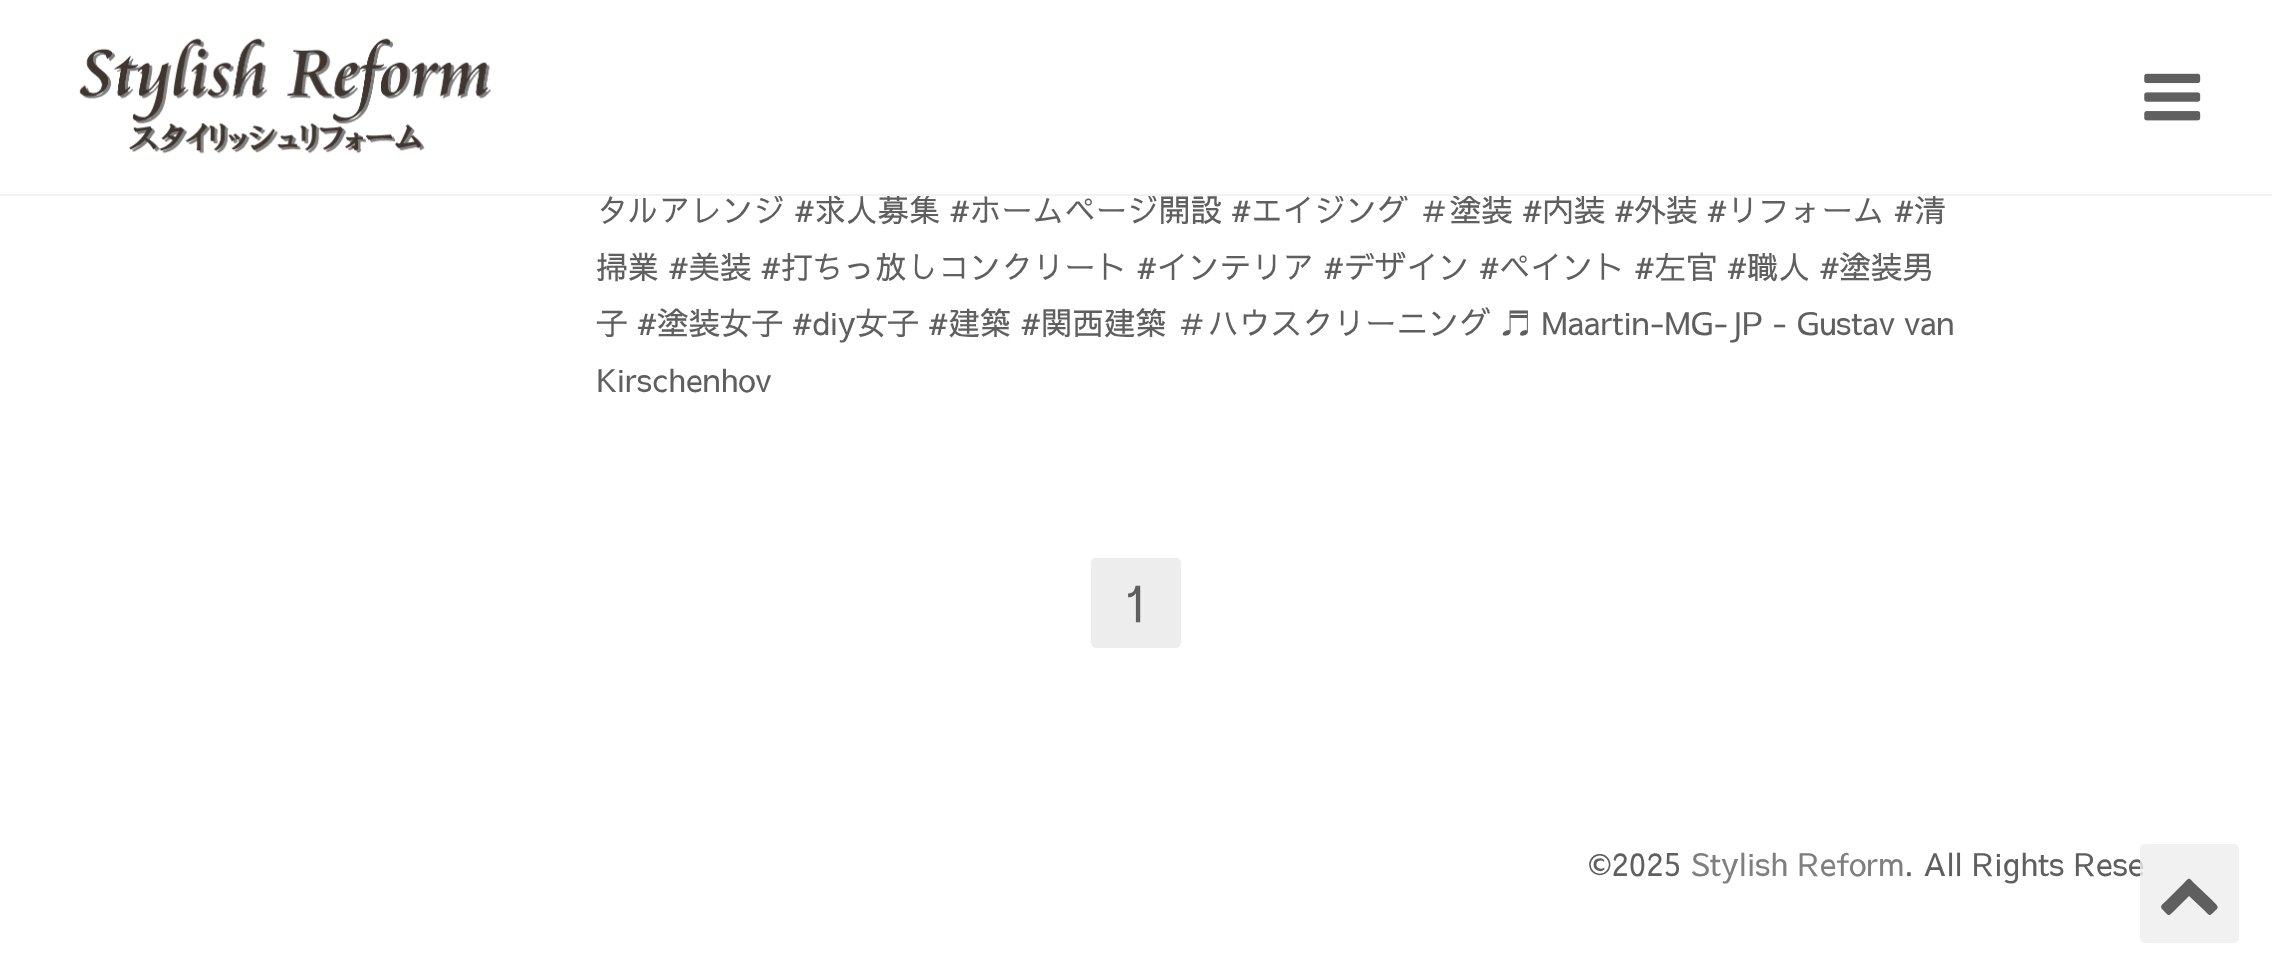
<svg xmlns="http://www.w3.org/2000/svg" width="2272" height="976">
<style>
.a{font:31.5px Sawarabi Gothic;fill:#5f5f5f}
.b{font:50px Sawarabi Gothic;fill:#5f5f5f}
.c{font:31.5px Sawarabi Gothic;fill:#7f7f7f}
</style>
<rect width="100%" height="100%" fill="#fff"/>
<image href="1.png" x="79" y="38" width="412" height="116"/>
<image href="2.png" x="2144" y="73" width="57" height="48"/>
<rect fill="#ededed" x="1091" y="558" width="90" height="90" rx="5"/>
<text class="a" x="596" y="222">タルアレンジ #求人募集 #ホームページ開設 #エイジング ＃塗装 #内装 #外装 #リフォーム #清</text>
<path fill="#f2f2f2" d="M0 194h2272v2H0z"/>
<text class="a" x="596" y="279">掃業 #美装 #打ちっ放しコンクリート #インテリア #デザイン #ペイント #左官 #職人 #塗装男</text>
<text class="a" x="596" y="335">子 #塗装女子 #diy女子 #建築 #関西建築 ＃ハウスクリーニング ♬ Maartin-MG-JP - Gustav van</text>
<text class="a" x="596" y="392">Kirschenhov</text>
<text class="b" x="1123" y="622">1</text>
<text class="a" x="1588" y="876">©2025</text>
<text class="c" x="1691" y="876">Stylish Reform</text>
<text class="a" x="1904" y="876">. All Rights Rese</text>
<rect fill="#edededcc" x="2140" y="844" width="99" height="99" rx="5"/>
<path fill="#5f5f5f" d="M2217 909c-7 6-6 9-12 2l-16-15l-15 15c-6 6-5 5-11-1c-4-4-1-5 3-9l17-17c7-7 5-7 12 0l18 17c0 1 7 5 4 8z"/>
</svg>
